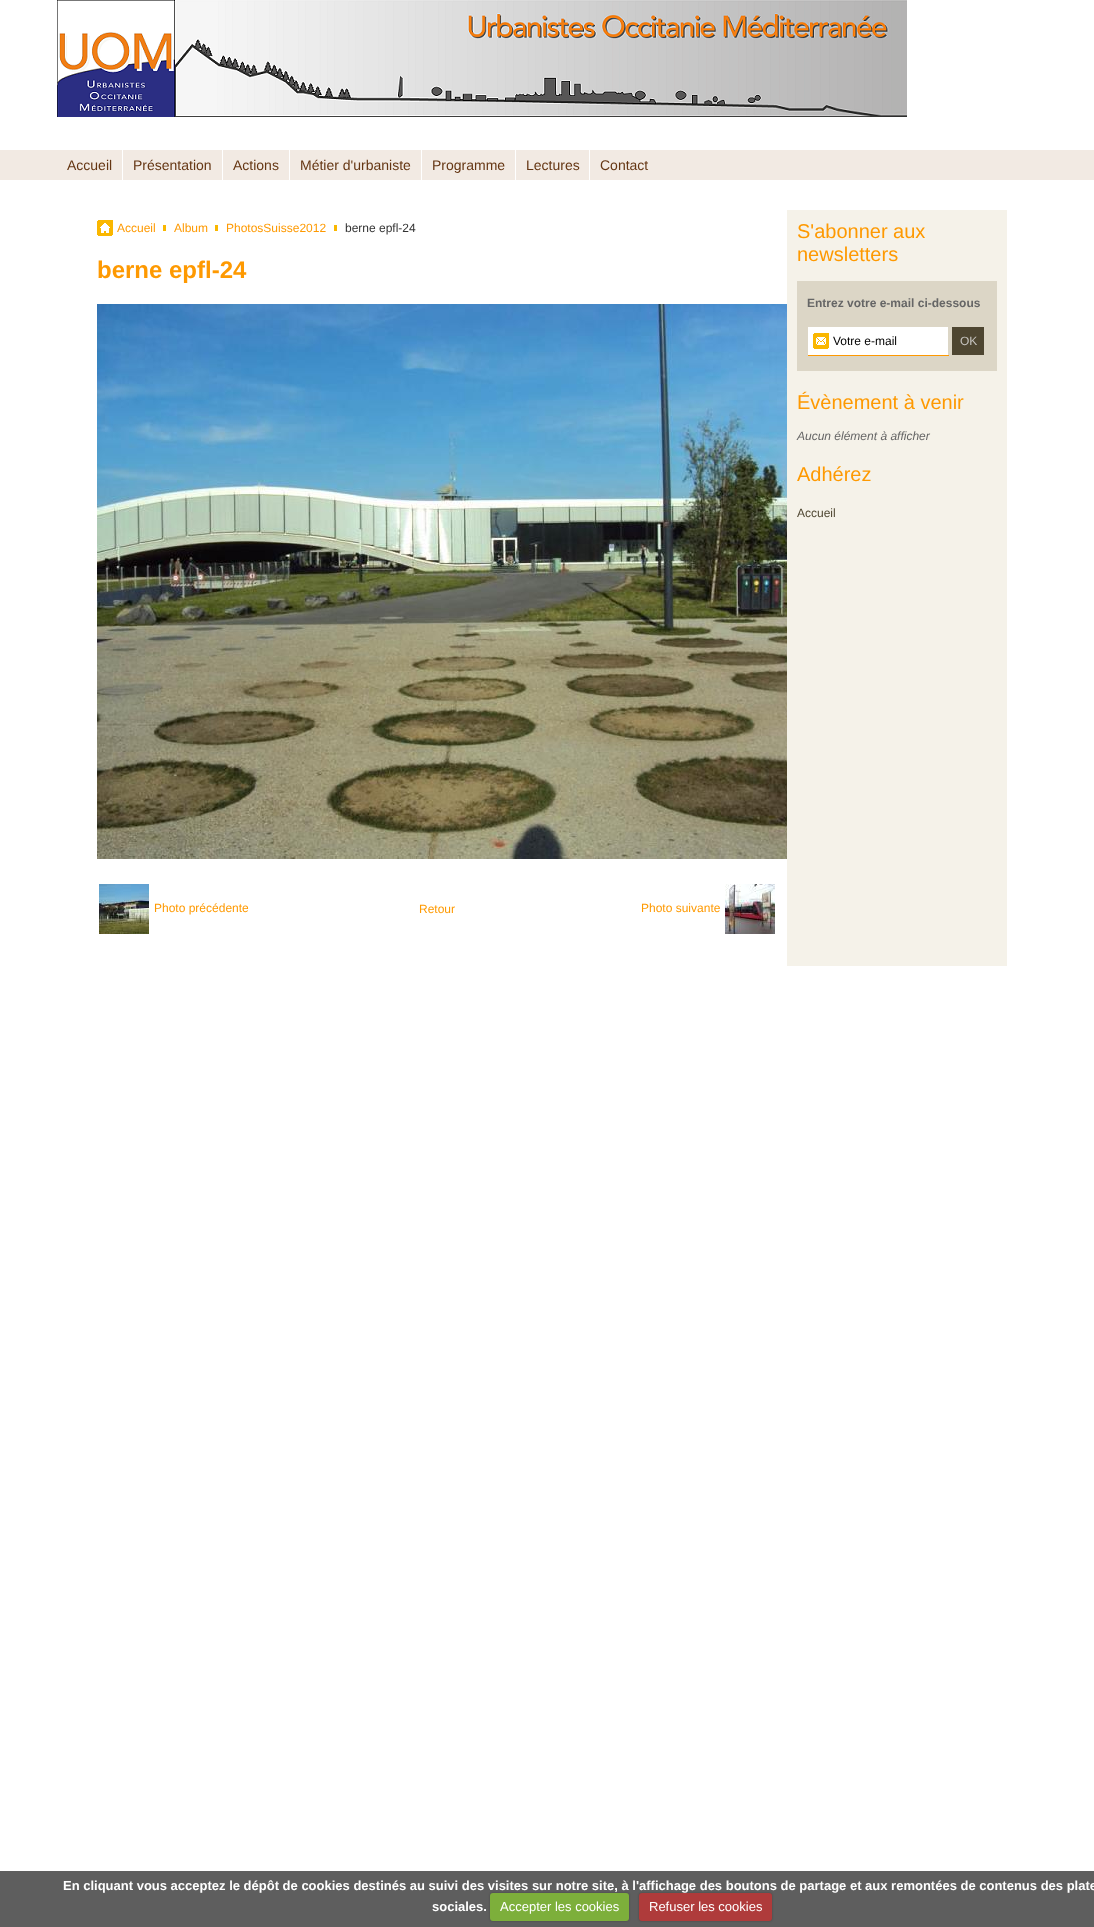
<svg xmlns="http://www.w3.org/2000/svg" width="1094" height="1927">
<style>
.a{font:14px Liberation Sans;fill:#653613}
.b{font:12px Liberation Sans;fill:#fe9901}
.c{font:12px Liberation Sans;fill:#333}
.d{font:bold 24px Liberation Sans;fill:#fe9901}
.e{font:20px Liberation Sans;fill:#fe9901}
.f{font:bold 12px Liberation Sans;fill:#666}
.g{font:12px Liberation Sans;fill:#000}
.h{font:12px Liberation Sans;fill:#c7c5c1}
.i{font:italic 12px Liberation Sans;fill:#666}
.j{font:12px Liberation Sans;fill:#4e4631}
.k{font:bold 13px Liberation Sans;fill:#fff}
.l{font:13px Liberation Sans;fill:#fff}
</style>
<rect width="100%" height="100%" fill="#fff"/>
<image href="1.png" x="57" y="0" width="850" height="117"/>
<path fill="#f2eae3" d="M0 150h1094v30H0z"/>
<path fill="#fff" d="M122 150h1v30H122z"/>
<path fill="#fff" d="M222 150h1v30H222z"/>
<path fill="#fff" d="M289 150h1v30H289z"/>
<path fill="#fff" d="M421 150h1v30H421z"/>
<path fill="#fff" d="M515 150h1v30H515z"/>
<path fill="#fff" d="M589 150h1v30H589z"/>
<image href="2.png" x="97" y="220" width="16" height="16"/>
<path fill="#fab700" d="M163 225h3v6H163z"/>
<path fill="#fab700" d="M215 225h3v6H215z"/>
<path fill="#fab700" d="M334 225h3v6H334z"/>
<image href="3.png" x="97" y="304" width="690" height="555"/>
<image href="4.png" x="99" y="884" width="50" height="50"/>
<image href="5.png" x="725" y="884" width="50" height="50"/>
<path fill="#f5f2e9" d="M787 210h220v756H787z"/>
<path fill="#dcd6c6" d="M797 281h200v90H797z"/>
<path fill="#fff" d="M808 327h140v28H808z"/>
<image href="6.png" x="813" y="333" width="16" height="16"/>
<path fill="#fe9901" d="M807 355h142v1H807z"/>
<path fill="#dcd6c6" d="M807 355h1v1H807z"/>
<path fill="#4e4631" d="M952 327h32v28H952z"/>
<path fill="#5e5e5e" d="M0 1871h1094v56H0z"/>
<rect fill="#00000040" filter="blur(1px)" x="490" y="1893" width="139" height="28" rx="3"/>
<rect fill="#7daf3b" x="490" y="1893" width="139" height="28" rx="3"/>
<rect fill="#00000040" filter="blur(1px)" x="639" y="1893" width="133" height="28" rx="3"/>
<rect fill="#af3b3b" x="639" y="1893" width="133" height="28" rx="3"/>
<text class="a" x="67" y="170">Accueil</text>
<text class="a" x="133" y="170">Présentation</text>
<text class="a" x="233" y="170">Actions</text>
<text class="a" x="300" y="170">Métier d'urbaniste</text>
<text class="a" x="432" y="170">Programme</text>
<text class="a" x="526" y="170">Lectures</text>
<text class="a" x="600" y="170">Contact</text>
<text class="b" x="117" y="232">Accueil</text>
<text class="b" x="174" y="232">Album</text>
<text class="b" x="226" y="232">PhotosSuisse2012</text>
<text class="c" x="345" y="232">berne epfl-24</text>
<text class="d" x="97" y="278">berne epfl-24</text>
<text class="b" x="154" y="912">Photo précédente</text>
<text class="b" x="419" y="913">Retour</text>
<text class="b" x="641" y="912">Photo suivante</text>
<text class="e" x="797" y="238">S'abonner aux</text>
<text class="e" x="797" y="261">newsletters</text>
<text class="f" x="807" y="307">Entrez votre e-mail ci-dessous</text>
<text class="g" x="833" y="345">Votre e-mail</text>
<text class="h" x="960" y="345">OK</text>
<text class="e" x="797" y="409">Évènement à venir</text>
<text class="i" x="797" y="440">Aucun élément à afficher</text>
<text class="e" x="797" y="481">Adhérez</text>
<text class="j" x="797" y="517">Accueil</text>
<text class="k" x="63" y="1890">En cliquant vous acceptez le dépôt de cookies destinés au suivi des visites sur notre site, à l'affichage des boutons de partage et aux remontées de contenus des plate</text>
<text class="k" x="432" y="1911">sociales.</text>
<text class="l" x="500" y="1911">Accepter les cookies</text>
<text class="l" x="649" y="1911">Refuser les cookies</text>
</svg>
